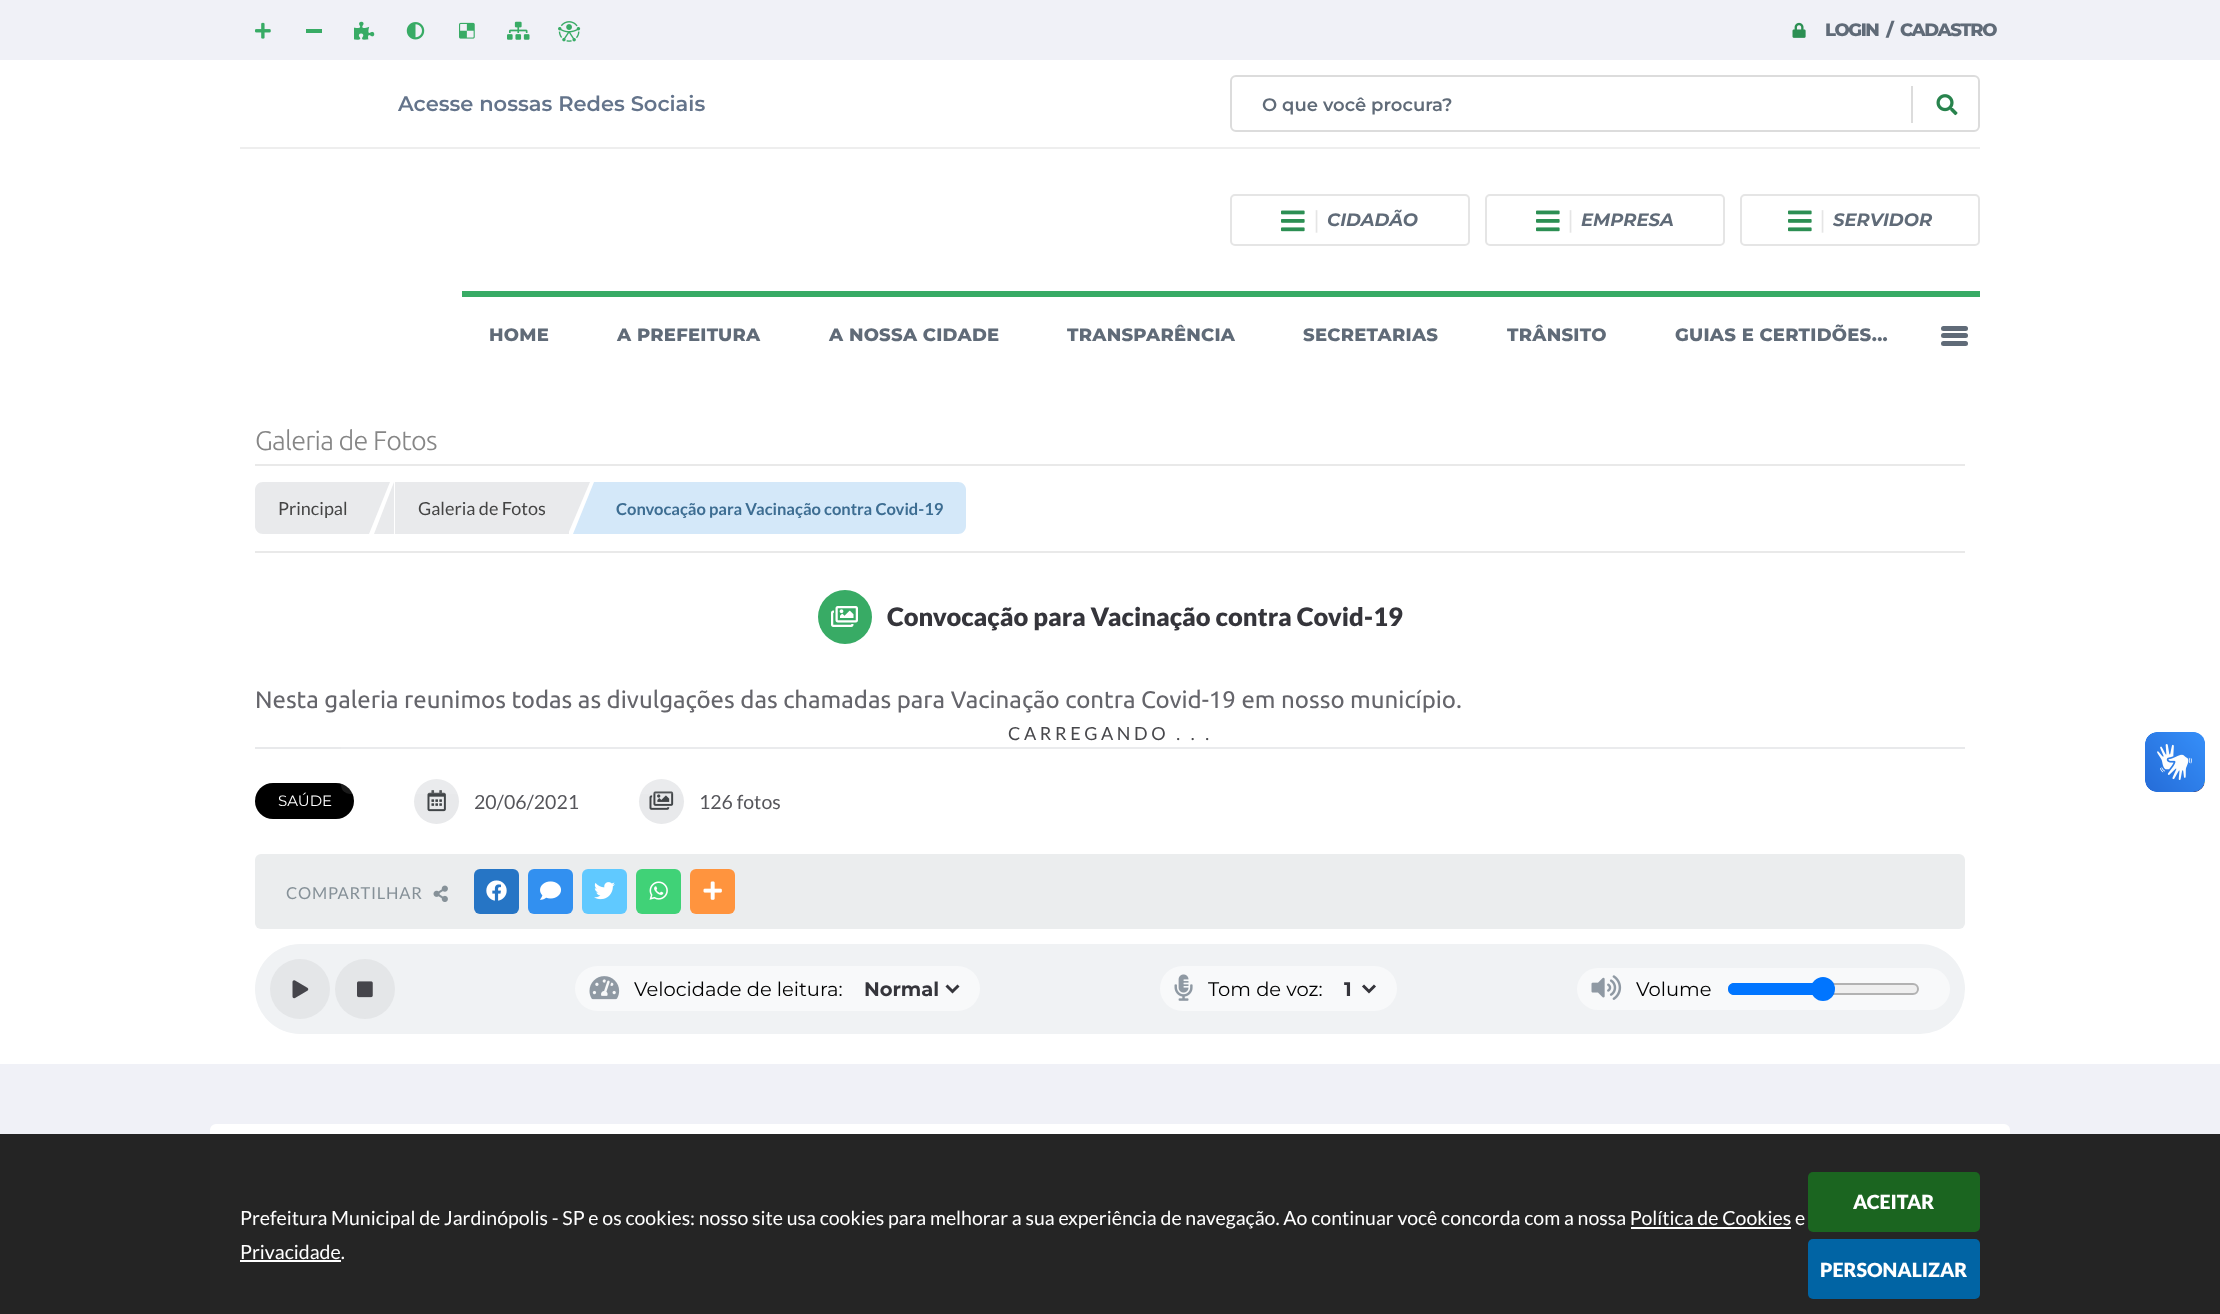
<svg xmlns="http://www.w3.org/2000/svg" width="2220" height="1314">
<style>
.a{font:800 18px Montserrat;letter-spacing:-1.4px;fill:#606b78}
.b{font:600 21px Montserrat;fill:#64748b}
.c{font:600 18px Montserrat;fill:#606b78}
.d{font:24px Montserrat;fill:#e5e5e5}
.e{font:italic bold 18px Montserrat;fill:#606b78}
.f{font:800 18px Montserrat;letter-spacing:0.25px;fill:#606b78}
.g{font:19.5px Lato;fill:#fff}
.h{font:900 19.5px Lato;fill:#fff}
.i{font:300 27px Ubuntu;letter-spacing:-0.75px;fill:#868686}
.j{font:18px Lato;fill:#444}
.k{font:bold 16.5px Lato;fill:#3d6d92}
.l{font:900 25.5px Lato;fill:#35353b}
.m{font:24px Ubuntu;fill:#65656b}
.n{font:18px Lato;letter-spacing:3.6px;fill:#47474b}
.o{font:15px Montserrat;fill:#fff}
.p{font:19.5px Lato;fill:#56565b}
.q{font:16.5px Lato;letter-spacing:0.75px;fill:#869198}
.r{font:19.5px Montserrat;fill:#000}
.s{font:bold 19.5px Montserrat;fill:#35353b}
</style>
<defs>
<clipPath id="clip1"><path d="M1344 975h14v27H1344z"/></clipPath>
</defs>
<rect width="100%" height="100%" fill="#fff"/>
<path fill="#f0f1f7" d="M0 0h2220v60H0z"/>
<image href="1.png" x="1792" y="22" width="14" height="16"/>
<image href="2.png" x="255" y="22" width="16" height="17"/>
<path fill="#38ab65" d="M306 29h16v4H306z"/>
<image href="3.png" x="354" y="21" width="21" height="19"/>
<image href="4.png" x="406" y="22" width="19" height="18"/>
<image href="5.png" x="459" y="22" width="16" height="17"/>
<image href="6.png" x="507" y="21" width="23" height="19"/>
<image href="7.png" x="558" y="21" width="23" height="21"/>
<path fill="#eee" d="M240 147h1740v2H240z"/>
<rect fill="none" stroke="#dcdcdc" stroke-width="2" x="1231" y="76" width="748" height="55" rx="5"/>
<path fill="#dcdcdc" d="M1911 86h2v37H1911z"/>
<image href="8.png" x="1936" y="94" width="22" height="22"/>
<rect fill="none" stroke="#e5e5e5" stroke-width="2" x="1231" y="195" width="238" height="50" rx="4"/>
<image href="9.png" x="1281" y="210" width="24" height="22"/>
<rect fill="none" stroke="#e5e5e5" stroke-width="2" x="1486" y="195" width="238" height="50" rx="4"/>
<image href="9.png" x="1536" y="210" width="24" height="22"/>
<rect fill="none" stroke="#e5e5e5" stroke-width="2" x="1741" y="195" width="238" height="50" rx="4"/>
<image href="9.png" x="1788" y="210" width="24" height="22"/>
<path fill="#38ab65" d="M462 291h1518v6H462z"/>
<rect fill="#606b78" x="1941" y="326" width="27" height="5" rx="2.5"/>
<rect fill="#606b78" x="1941" y="333" width="27" height="5" rx="2.5"/>
<rect fill="#606b78" x="1941" y="341" width="27" height="5" rx="2.5"/>
<image href="10.png" x="2145" y="732" width="60" height="60"/>
<image href="11.png" x="2145" y="732" width="60" height="60"/>
<path fill="#242424" d="M0 1134h2220v180H0z"/>
<path fill="#f0f1f7" d="M0 1064h2220v70H0z"/>
<rect fill="#fff" x="210" y="1124" width="1800" height="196" rx="6"/>
<path fill="#252525" d="M210 1134h1800v180H210z"/>
<path fill="#fff" d="M1631 1227h160v2H1631z"/>
<path fill="#fff" d="M240 1260h101v2H240z"/>
<rect fill="#1b6520" x="1808" y="1172" width="172" height="60" rx="5"/>
<rect fill="#0164a4" x="1808" y="1239" width="172" height="60" rx="5"/>
<path fill="#e9e9e9" d="M255 464h1710v2H255z"/>
<path fill="#e9e9e9" d="M255 551h1710v2H255z"/>
<path fill="#e9eaec" d="M263 482h106v52h-106c-4.5 0-8-3.5-8-8v-36c0-4.5 3.5-8 8-8z"/>
<path fill="#e9eaec" d="M369 482h21l-21 52z"/>
<path fill="#e9eaec" d="M395 482h174v52H395z"/>
<path fill="#e9eaec" d="M394 534h-20l20-52z"/>
<path fill="#e9eaec" d="M568 482h22l-22 52z"/>
<path fill="#d4e8f9" d="M594 482h364c4.5 0 8 3.5 8 8v36c0 4.5-3.5 8-8 8h-364z"/>
<path fill="#d4e8f9" d="M594 534h-21l21-52z"/>
<circle fill="#38ab65" cx="845" cy="617" r="27"/>
<image href="12.png" x="831" y="606" width="27" height="21"/>
<path fill="#e8e9eb" d="M255 747h1710v2H255z"/>
<rect fill="#000" x="255" y="783" width="99" height="36" rx="18"/>
<circle fill="#e8e9eb" cx="436.5" cy="801.5" r="22.5"/>
<image href="13.png" x="427" y="790" width="19" height="22"/>
<circle fill="#e8e9eb" cx="661.5" cy="801.5" r="22.5"/>
<image href="14.png" x="649" y="791" width="25" height="19"/>
<rect fill="#ffffff1a" x="341" y="674" width="1539" height="120" rx="9"/>
<rect fill="#ebedee" x="255" y="854" width="1710" height="75" rx="6"/>
<image href="15.png" x="433" y="885" width="15" height="17"/>
<rect fill="#2675c5" x="474" y="869" width="45" height="45" rx="6"/>
<image href="16.png" x="486" y="880" width="21" height="21"/>
<rect fill="#3290f0" x="528" y="869" width="45" height="45" rx="6"/>
<image href="17.png" x="540" y="881" width="21" height="19"/>
<rect fill="#60c9ff" x="582" y="869" width="45" height="45" rx="6"/>
<image href="18.png" x="594" y="882" width="21" height="18"/>
<rect fill="#40d277" x="636" y="869" width="45" height="45" rx="6"/>
<image href="19.png" x="649" y="881" width="19" height="19"/>
<rect fill="#ff943e" x="690" y="869" width="45" height="45" rx="6"/>
<image href="20.png" x="703" y="881" width="19" height="19"/>
<rect fill="#f0f2f4" x="255" y="944" width="1710" height="90" rx="45"/>
<circle fill="#e4e6e8" cx="300" cy="989" r="30"/>
<image href="21.png" x="292" y="980" width="17" height="19"/>
<circle fill="#e4e6e8" cx="365" cy="989" r="30"/>
<image href="22.png" x="357" y="981" width="16" height="17"/>
<rect fill="#f8f9fa" x="575" y="966" width="405" height="45" rx="22.5"/>
<image href="23.png" x="589" y="976" width="31" height="24"/>
<path fill="none" stroke="#35353b" stroke-width="3" d="M946.5 985.5l6 6l6-6"/>
<rect fill="#f8f9fa" x="1160" y="966" width="237" height="45" rx="22.5"/>
<image href="24.png" x="1174" y="974" width="19" height="27"/>
<path fill="none" stroke="#35353b" stroke-width="3" d="M1363 985.5l6 6l6-6"/>
<rect fill="#f8f9fa" x="1577" y="968" width="373" height="42" rx="21"/>
<image href="25.png" x="1591" y="975" width="31" height="25"/>
<rect fill="#efefef" stroke="#b2b2b2" stroke-width="2" x="1729" y="984" width="189" height="10" rx="5"/>
<path fill="#0075ff" d="M1734 983h89v12h-89c-3.5 0-6-2.5-6-6c0-3.5 2.5-6 6-6z"/>
<circle fill="#0075ff" cx="1823" cy="989" r="12"/>
<text class="a" xml:space="preserve" x="1825" y="36">LOGIN  /  CADASTRO</text>
<text class="b" x="398" y="111">Acesse nossas Redes Sociais</text>
<text class="c" x="1262" y="111">O que você procura?</text>
<text class="d" x="1313" y="228">|</text>
<text class="e" x="1327" y="226">CIDADÃO</text>
<text class="d" x="1567" y="228">|</text>
<text class="e" x="1581" y="226">EMPRESA</text>
<text class="d" x="1819" y="228">|</text>
<text class="e" x="1833" y="226">SERVIDOR</text>
<text class="f" x="489" y="341">HOME</text>
<text class="f" x="617" y="341">A PREFEITURA</text>
<text class="f" x="829" y="341">A NOSSA CIDADE</text>
<text class="f" x="1067" y="341">TRANSPARÊNCIA</text>
<text class="f" x="1303" y="341">SECRETARIAS</text>
<text class="f" x="1507" y="341">TRÂNSITO</text>
<text class="f" x="1675" y="341">GUIAS E CERTIDÕES...</text>
<text class="g" x="240" y="1225">Prefeitura Municipal de Jardinópolis - SP e os cookies: nosso site usa cookies para melhorar a sua experiência de navegação. Ao continuar você concorda com a nossa Política de Cookies e</text>
<text class="g" x="240" y="1259">Privacidade.</text>
<text class="h" x="1853" y="1209">ACEITAR</text>
<text class="h" x="1820" y="1277">PERSONALIZAR</text>
<text class="i" x="255" y="450">Galeria de Fotos</text>
<text class="j" x="278" y="515">Principal</text>
<text class="j" x="418" y="515">Galeria de Fotos</text>
<text class="k" x="616" y="515">Convocação para Vacinação contra Covid-19</text>
<text class="l" x="887" y="626">Convocação para Vacinação contra Covid-19</text>
<text class="m" x="255" y="708">Nesta galeria reunimos todas as divulgações das chamadas para Vacinação contra Covid-19 em nosso município.</text>
<text class="n" x="1008" y="740">CARREGANDO . . .</text>
<text class="o" x="278" y="806">SAÚDE</text>
<text class="p" x="474" y="809">20/06/2021</text>
<text class="p" x="699" y="809">126 fotos</text>
<text class="q" x="286" y="899">COMPARTILHAR</text>
<text class="r" x="634" y="996">Velocidade de leitura:</text>
<text class="s" x="864" y="996">Normal</text>
<text class="r" x="1208" y="996">Tom de voz:</text>
<g clip-path="url(#clip1)">
<text class="s" x="1344" y="996">1</text>
</g>
<text class="r" x="1636" y="996">Volume</text>
</svg>
